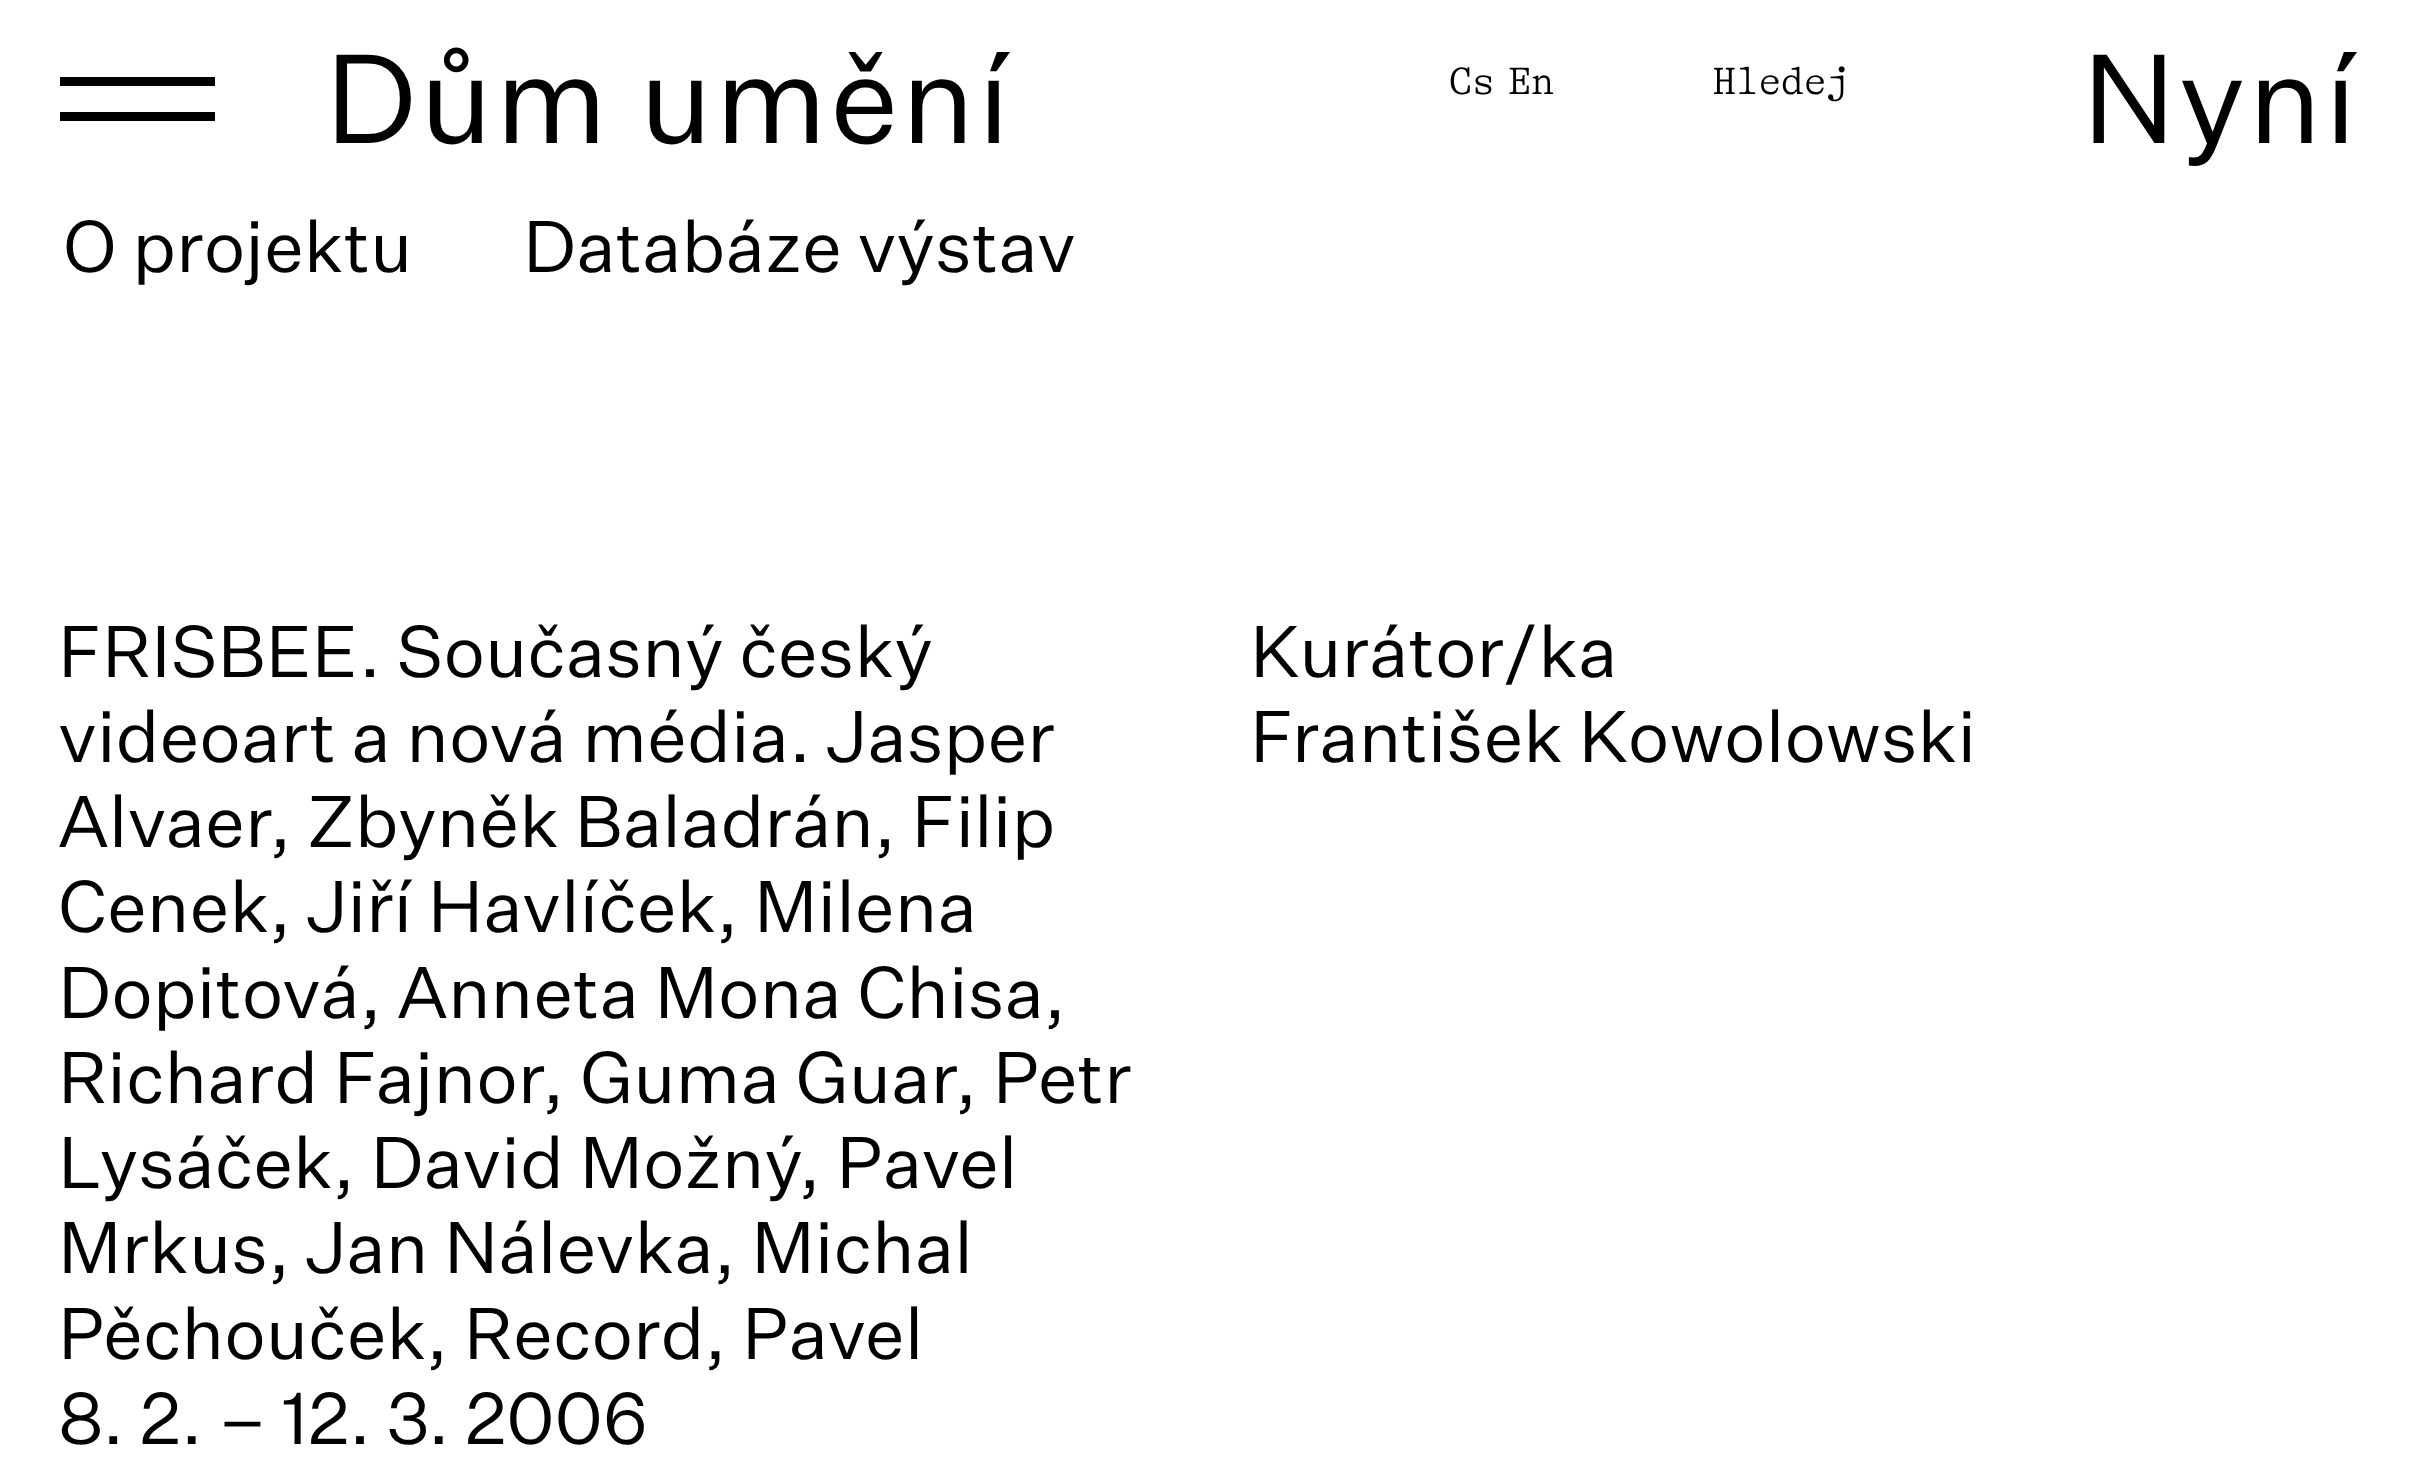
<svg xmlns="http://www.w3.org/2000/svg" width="2416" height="1461">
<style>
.a{font:123.75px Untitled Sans;letter-spacing:2.5px;fill:#000}
.b{font:300 38.5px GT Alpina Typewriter;fill:#000}
.c{font:71.5px Untitled Sans;fill:#000}
</style>
<rect width="100%" height="100%" fill="#fff"/>
<path fill="#000" d="M60 77h155v9H60z"/>
<path fill="#000" d="M60 112h155v9H60z"/>
<text class="a" x="325" y="143">Dům umění</text>
<text class="b" x="1449" y="94">Cs</text>
<text class="b" x="1508" y="94">En</text>
<text class="b" x="1713" y="94">Hledej</text>
<text class="a" x="2082" y="143">Nyní</text>
<text class="c" x="63" y="272">O projektu</text>
<text class="c" x="523" y="272">Databáze výstav</text>
<text class="c" x="58" y="677">FRISBEE. Současný český</text>
<text class="c" x="58" y="762">videoart a nová média. Jasper</text>
<text class="c" x="58" y="847">Alvaer, Zbyněk Baladrán, Filip</text>
<text class="c" x="58" y="932">Cenek, Jiří Havlíček, Milena</text>
<text class="c" x="58" y="1018">Dopitová, Anneta Mona Chisa,</text>
<text class="c" x="58" y="1103">Richard Fajnor, Guma Guar, Petr</text>
<text class="c" x="58" y="1188">Lysáček, David Možný, Pavel</text>
<text class="c" x="58" y="1273">Mrkus, Jan Nálevka, Michal</text>
<text class="c" x="58" y="1359">Pěchouček, Record, Pavel</text>
<text class="c" x="58" y="1444">8. 2. – 12. 3. 2006</text>
<text class="c" x="1250" y="677">Kurátor/ka</text>
<text class="c" x="1250" y="762">František Kowolowski</text>
</svg>
